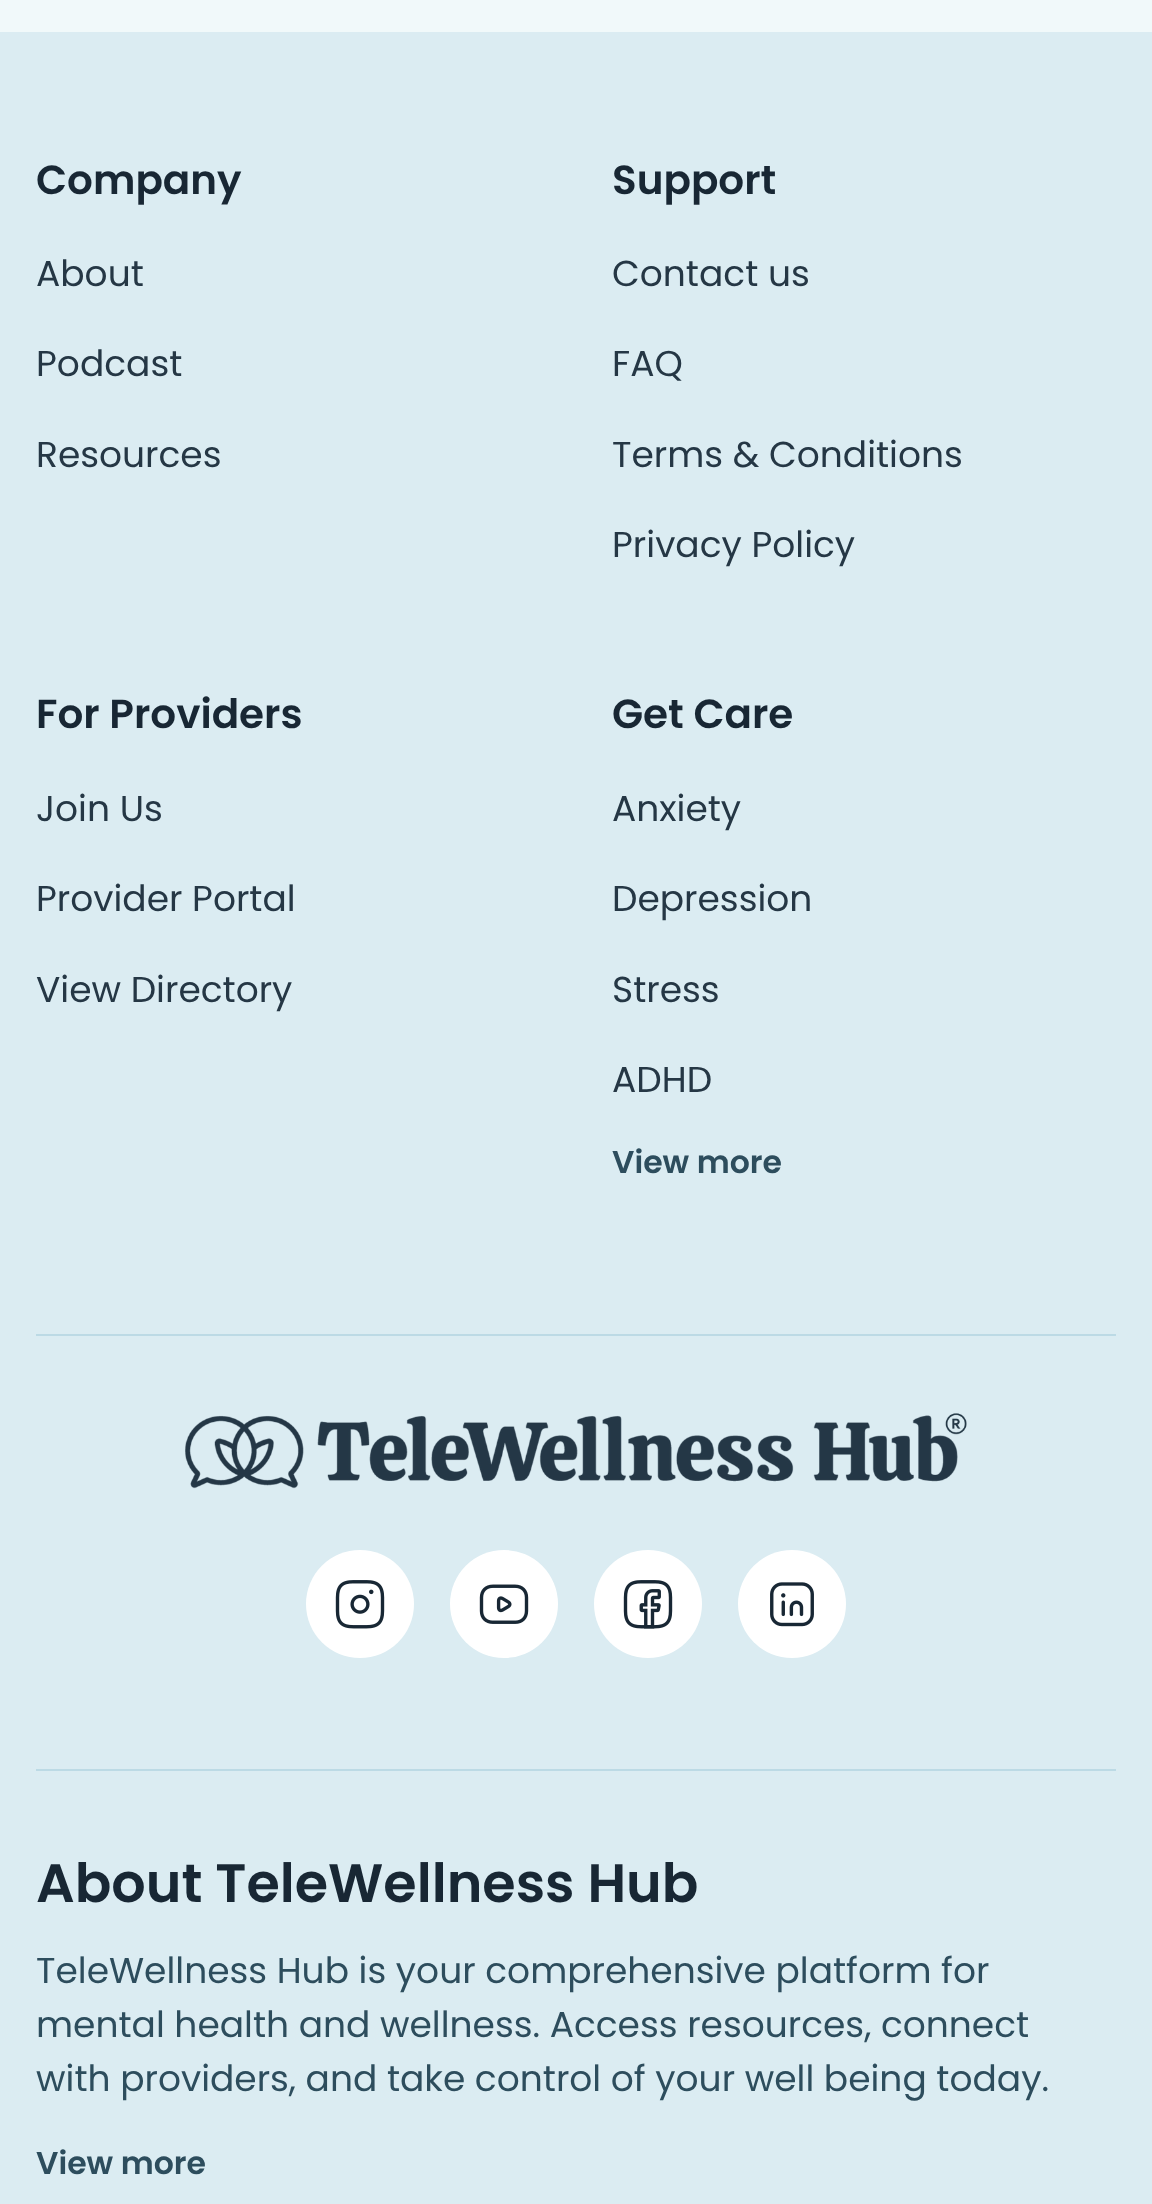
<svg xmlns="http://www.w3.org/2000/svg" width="1152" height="2204">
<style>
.a{font:600 40.5px Poppins;fill:#182734}
.b{font:36px Poppins;fill:#253745}
.c{font:600 31.5px Poppins;fill:#2d4d5d}
.d{font:600 54px Poppins;fill:#182734}
.e{font:36px Poppins;fill:#2d4d5d}
</style>
<rect width="100%" height="100%" fill="#dbecf2"/>
<path fill="#f1f9fa" d="M0 0h1152v32H0z"/>
<path fill="#bcdae5" d="M36 1334h1080v2H36z"/>
<image href="1.png" x="185" y="1413" width="782" height="76"/>
<circle fill="#fff" cx="360" cy="1604" r="54"/>
<image href="2.png" x="335" y="1580" width="50" height="49"/>
<circle fill="#fff" cx="504" cy="1604" r="54"/>
<image href="3.png" x="479" y="1584" width="50" height="40"/>
<circle fill="#fff" cx="648" cy="1604" r="54"/>
<image href="4.png" x="623" y="1580" width="50" height="49"/>
<circle fill="#fff" cx="792" cy="1604" r="54"/>
<image href="5.png" x="770" y="1582" width="44" height="45"/>
<path fill="#bcdae5" d="M36 1769h1080v2H36z"/>
<text class="a" x="36" y="194">Company</text>
<text class="b" x="36" y="286">About</text>
<text class="b" x="36" y="376">Podcast</text>
<text class="b" x="36" y="467">Resources</text>
<text class="a" x="612" y="194">Support</text>
<text class="b" x="612" y="286">Contact us</text>
<text class="b" x="612" y="376">FAQ</text>
<text class="b" x="612" y="467">Terms &amp; Conditions</text>
<text class="b" x="612" y="557">Privacy Policy</text>
<text class="a" x="36" y="728">For Providers</text>
<text class="b" x="36" y="821">Join Us</text>
<text class="b" x="36" y="911">Provider Portal</text>
<text class="b" x="36" y="1002">View Directory</text>
<text class="a" x="612" y="728">Get Care</text>
<text class="b" x="612" y="821">Anxiety</text>
<text class="b" x="612" y="911">Depression</text>
<text class="b" x="612" y="1002">Stress</text>
<text class="b" x="612" y="1092">ADHD</text>
<text class="c" x="612" y="1173">View more</text>
<text class="d" x="36" y="1902">About TeleWellness Hub</text>
<text class="e" x="36" y="1983">TeleWellness Hub is your comprehensive platform for</text>
<text class="e" x="36" y="2037">mental health and wellness. Access resources, connect</text>
<text class="e" x="36" y="2091">with providers, and take control of your well being today.</text>
<text class="c" x="36" y="2174">View more</text>
</svg>
